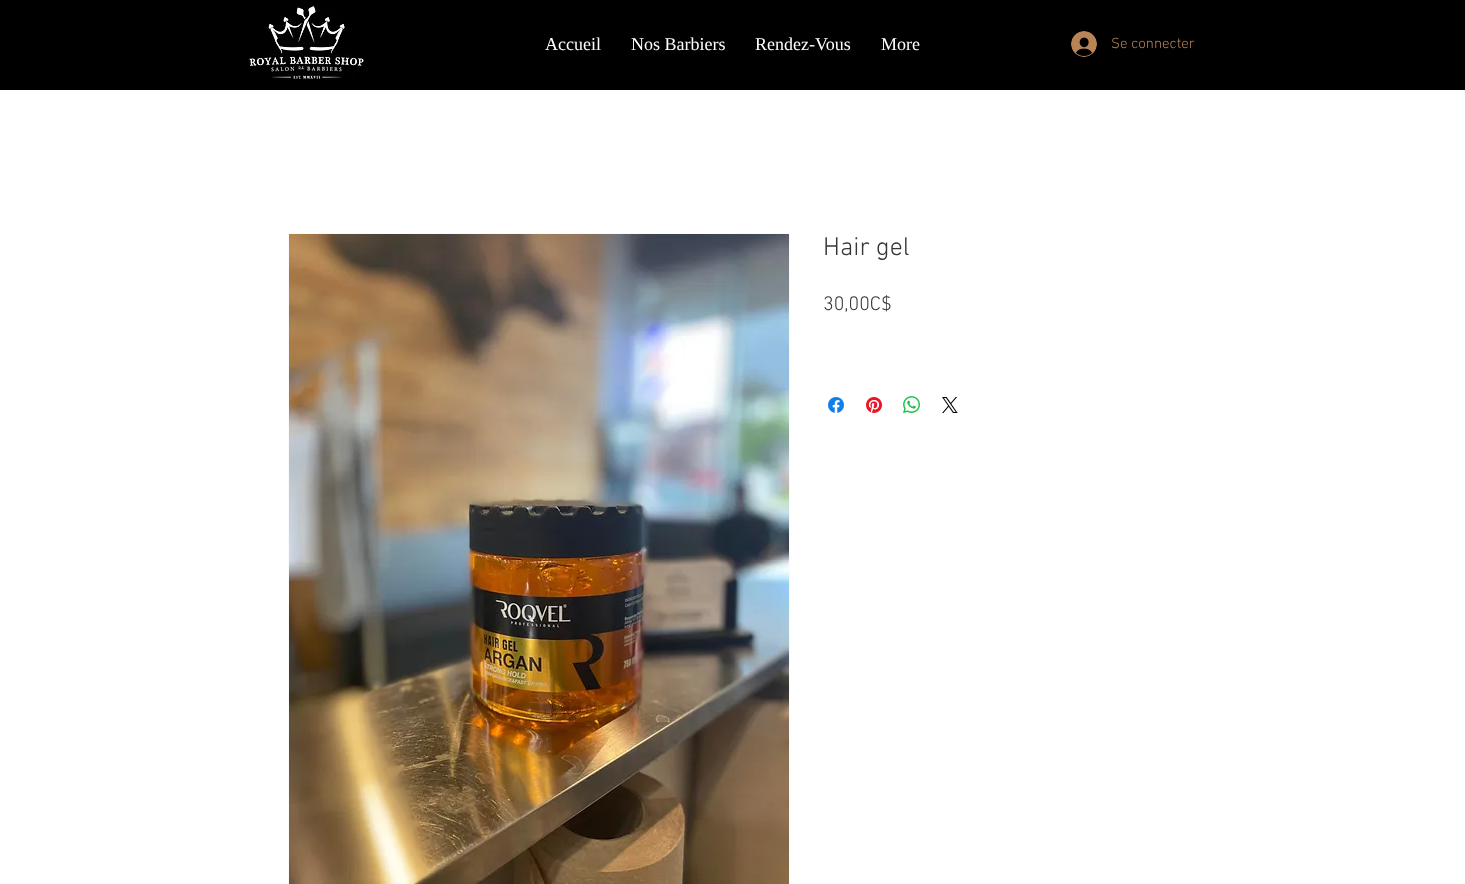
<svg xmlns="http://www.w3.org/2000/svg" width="1465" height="884">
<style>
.a{font:18px Liberation Serif;fill:#fff}
.b{font:300 15px 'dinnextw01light';fill:#b88355}
.c{font:300 26px 'dinnextw01light';fill:#363636}
.d{font:300 20px 'dinnextw01light';fill:#363636}
</style>
<rect width="100%" height="100%" fill="#fff"/>
<path fill="#000" d="M0 0h1465v90H0z"/>
<image href="1.png" x="247" y="6" width="120" height="74"/>
<image href="2.png" x="1071" y="31" width="26" height="26"/>
<path fill="none" stroke="#fafafa" d="M288.5 233.5h501v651H288.5z"/>
<image href="3.png" x="289" y="234" width="500" height="650"/>
<image href="4.png" x="828" y="397" width="16" height="16"/>
<image href="5.png" x="866" y="397" width="16" height="16"/>
<image href="6.png" x="903" y="396" width="17" height="17"/>
<image href="7.png" x="942" y="397" width="16" height="16"/>
<text class="a" x="545" y="50">Accueil</text>
<text class="a" x="631" y="50">Nos Barbiers</text>
<text class="a" x="755" y="50">Rendez-Vous</text>
<text class="a" x="881" y="50">More</text>
<text class="b" x="1111" y="48">Se connecter</text>
<text class="c" x="823" y="255">Hair gel</text>
<text class="d" x="823" y="310">30,00C$</text>
</svg>
